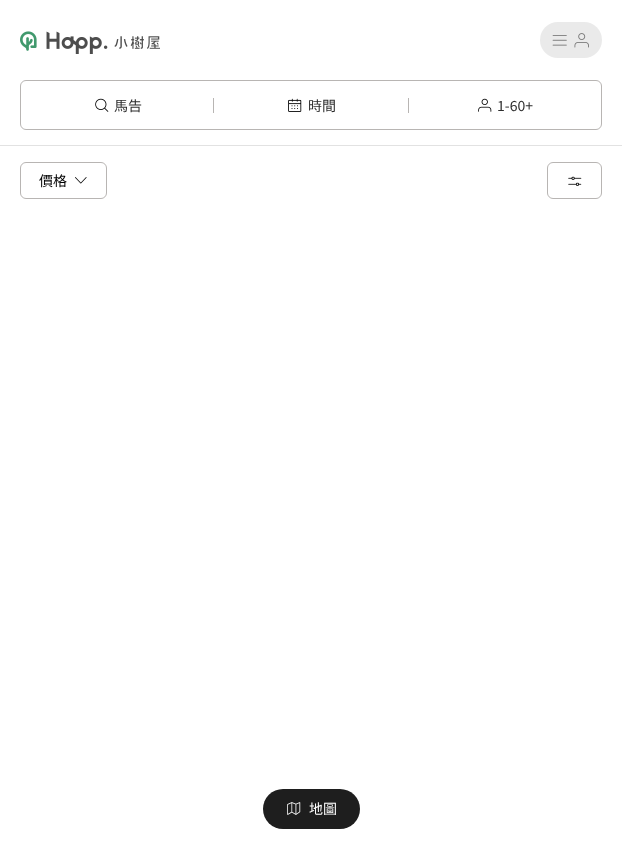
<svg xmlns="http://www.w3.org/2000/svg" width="622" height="857">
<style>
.a{font:14px Noto Sans TC;fill:#2d2d2d}
.b{font:14px Noto Sans TC;fill:#000}
.c{font:14px Noto Sans TC;fill:#fff}
</style>
<rect width="100%" height="100%" fill="#fff"/>
<image href="1.png" x="20" y="31" width="140" height="23"/>
<rect fill="#eaeaea" x="540" y="22" width="62" height="36" rx="18"/>
<image href="2.png" x="552" y="35" width="15" height="11"/>
<image href="3.png" x="574" y="33" width="15" height="15"/>
<path fill="#e2e2e2" d="M0 145h622v1H0z"/>
<rect fill="none" stroke="#b8b5b3" x="20.5" y="80.5" width="581" height="49" rx="5.5"/>
<image href="4.png" x="95" y="98" width="14" height="14"/>
<path fill="#b8b5b3" d="M213 98h1v15H213z"/>
<image href="5.png" x="288" y="98" width="14" height="14"/>
<path fill="#b8b5b3" d="M408 98h1v15H408z"/>
<image href="6.png" x="478" y="98" width="14" height="14"/>
<rect fill="none" stroke="#b8b5b3" x="20.5" y="162.5" width="86" height="36" rx="5.5"/>
<image href="7.png" x="75" y="177" width="12" height="7"/>
<rect fill="none" stroke="#b8b5b3" x="547.5" y="162.5" width="54" height="36" rx="5.5"/>
<image href="8.png" x="568" y="176" width="14" height="10"/>
<rect fill="#1e1e1e" x="263" y="789" width="97" height="40" rx="20"/>
<image href="9.png" x="287" y="802" width="14" height="13"/>
<text class="a" x="114" y="111">馬告</text>
<text class="a" x="308" y="111">時間</text>
<text class="a" x="497" y="111">1-60+</text>
<text class="b" x="39" y="186">價格</text>
<text class="c" x="309" y="814">地圖</text>
</svg>
